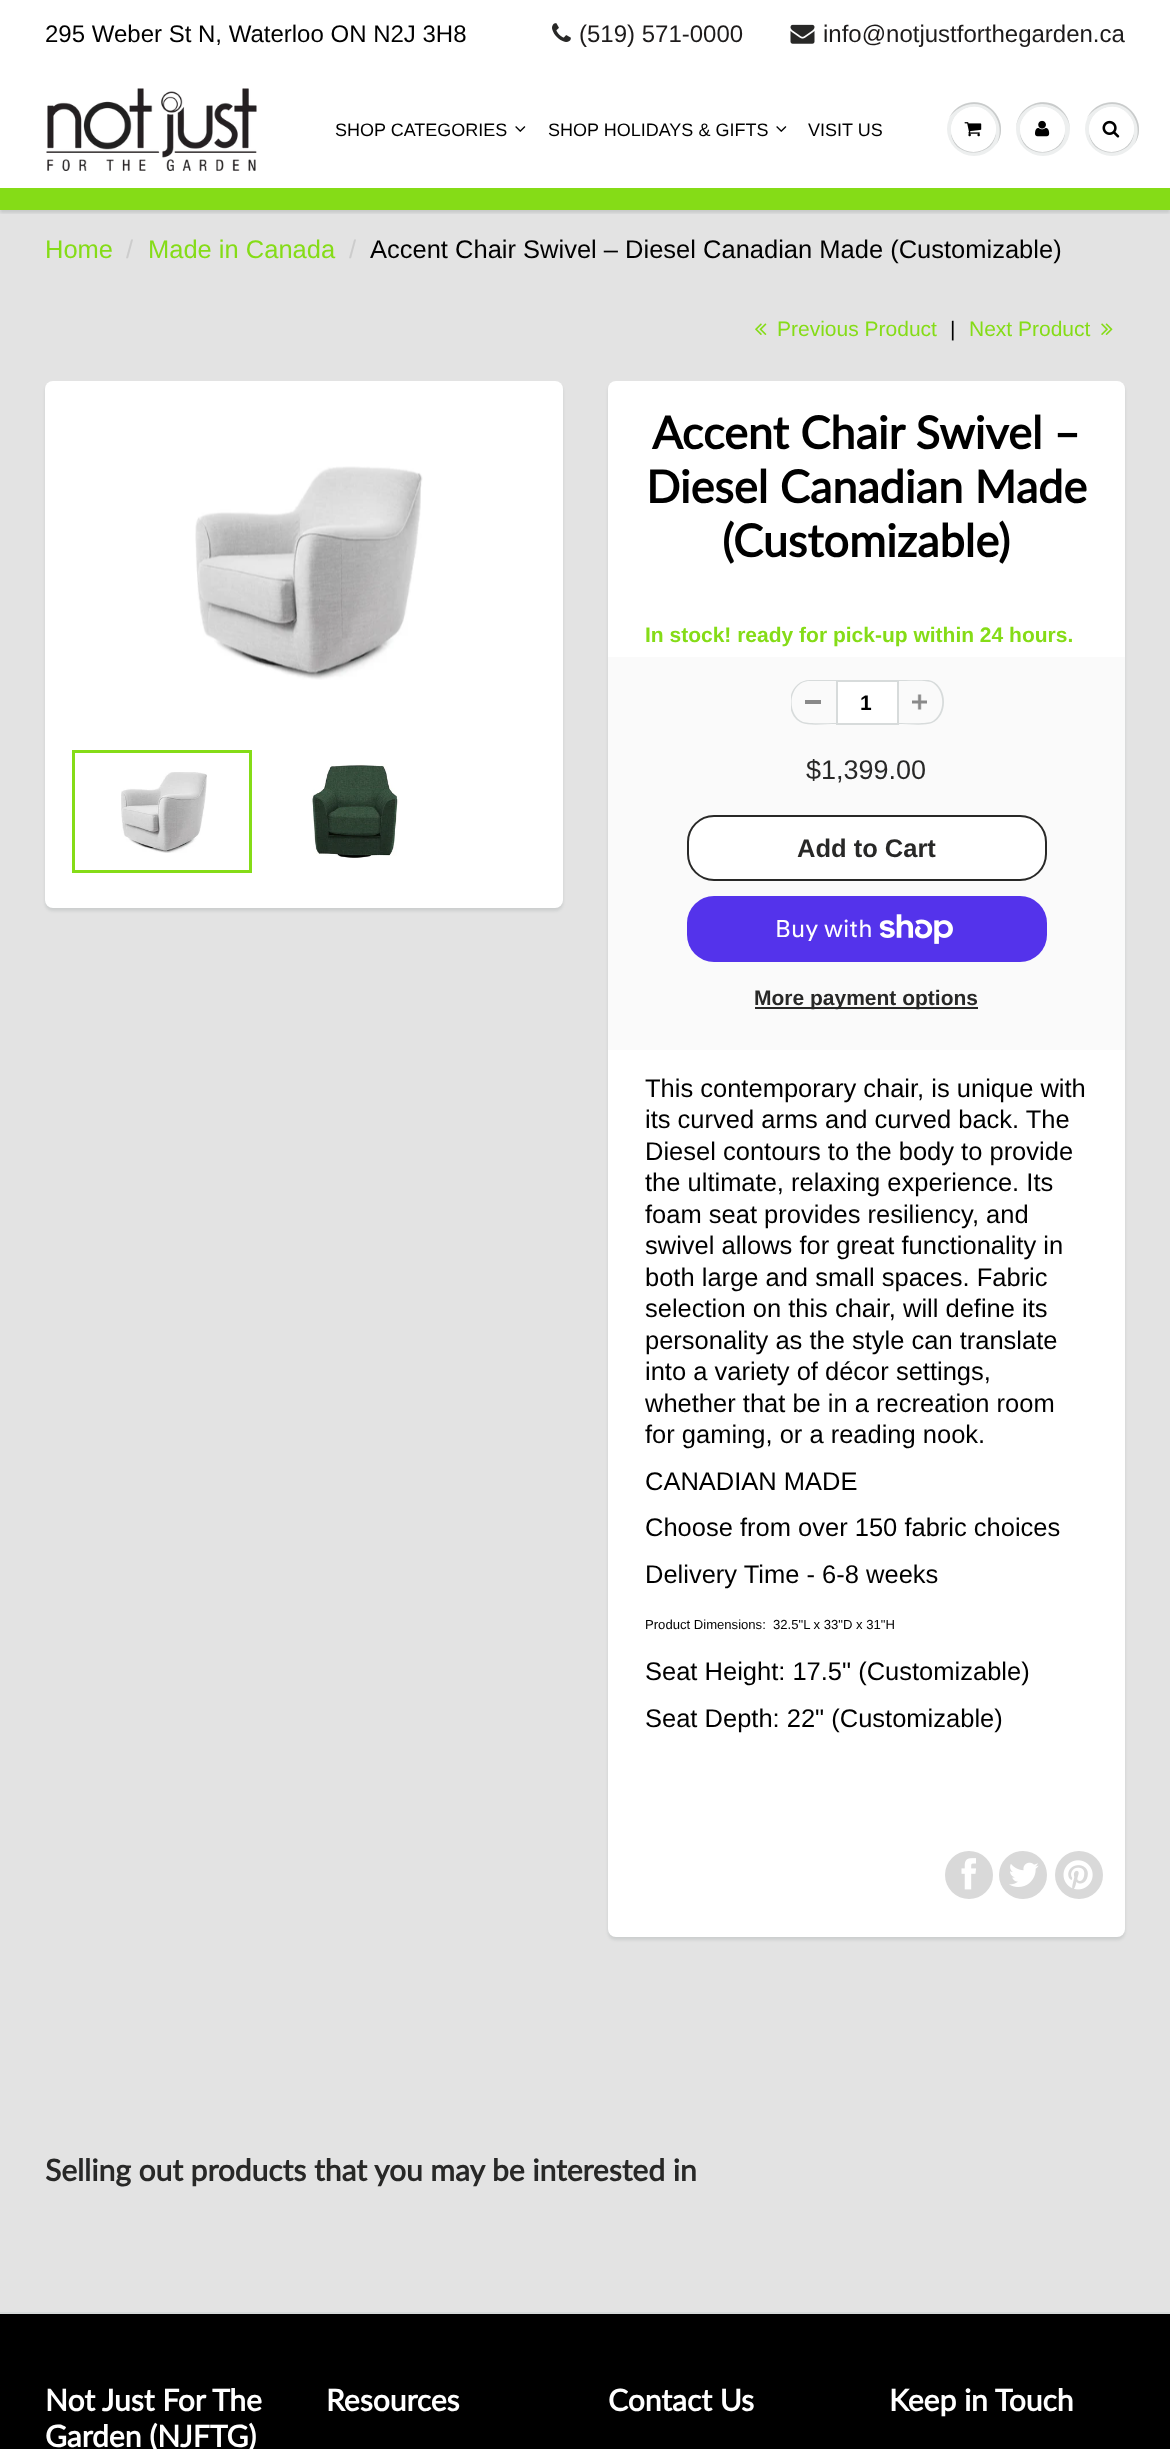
<svg xmlns="http://www.w3.org/2000/svg" width="1170" height="2449">
<style>
.a{font:24px Liberation Sans;fill:#000}
.b{font:24px Liberation Sans;fill:#1d1b1b}
.c{font:18px Liberation Sans;fill:#000}
.d{font:25.5px Liberation Sans;fill:#85dc17}
.e{font:25.5px Liberation Sans;fill:#ccc}
.f{font:25.5px Liberation Sans;fill:#000}
.g{font:21px Liberation Sans;fill:#85dc17}
.h{font:21px Liberation Sans;fill:#000}
.i{font:bold 45px Lato;fill:#000}
.j{font:bold 21px Liberation Sans;fill:#85dc17}
.k{font:bold 21px Liberation Sans;fill:#000}
.l{font:27px Liberation Sans;fill:#282827}
.m{font:bold 25.5px Liberation Sans;fill:#282827}
.n{font:24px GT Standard;fill:#fff}
.o{font:bold 21px Liberation Sans;fill:#282827}
.p{font:13.1px Liberation Sans;fill:#000}
.q{font:bold 30px Lato;fill:#282827}
.r{font:bold 30px Lato;fill:#fff}
</style>
<defs>
<clipPath id="clip1"><path d="M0 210h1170v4H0z"/></clipPath>
<clipPath id="clip2"><path d="M791 680h153v45H791z"/></clipPath>
</defs>
<rect width="100%" height="100%" fill="#fff"/>
<image href="1.png" x="552" y="23" width="19" height="19"/>
<image href="2.png" x="790" y="24" width="25" height="20"/>
<path fill="#e3e3e3" d="M0 210h1170v2102H0z"/>
<g clip-path="url(#clip1)">
<path fill="#0b191c1f" filter="blur(1.5px)" d="M0 74h1170v139H0z"/>
</g>
<path fill="#85dc17" d="M0 188h1170v22H0z"/>
<image href="3.png" x="46" y="88" width="211" height="83"/>
<image href="4.png" x="515" y="126" width="11" height="6"/>
<image href="4.png" x="776" y="126" width="11" height="6"/>
<circle fill="#edefef" cx="974" cy="129" r="27"/>
<path fill="#c9cbcb" d="M974 104c21 0 32 24 22 41c16-22-8-52-34-40c-5 2-10 7-13 13c5-8 15-14 25-14z"/>
<path fill="#c9cbcb" d="M951 130c-1 30 46 30 45 0c-1 28-44 28-45 0z"/>
<circle fill="#fff" cx="973.5" cy="129.5" r="22.5"/>
<path fill="#fff" d="M974 108c16 0 23 14 21 27c2-6 1-13-3-18c-15-23-49-3-39 21c-4-13 3-30 21-30z"/>
<image href="5.png" x="964" y="122" width="18" height="15"/>
<circle fill="#edefef" cx="1043" cy="129" r="27"/>
<path fill="#c9cbcb" d="M1042 104c15 0 28 12 28 26c0-6-2-12-5-16c-15-22-49-11-49 16c0-14 12-26 26-26zm-22 26c-1 30 46 30 45 0c-1 28-44 28-45 0z"/>
<circle fill="#fff" cx="1042.5" cy="129.5" r="22.5"/>
<path fill="#fff" d="M1042 108c18 0 25 17 21 30c10-24-24-44-39-21c-4 5-5 12-3 18c-2-13 5-27 21-27z"/>
<image href="6.png" x="1035" y="120" width="15" height="17"/>
<circle fill="#edefef" cx="1112" cy="129" r="27"/>
<path fill="#c9cbcb" d="M1112 104c21 0 32 24 22 41c16-22-8-52-34-40c-5 2-10 7-13 13c5-8 15-14 25-14z"/>
<path fill="#c9cbcb" d="M1089 130c-1 30 46 30 45 0c-1 28-44 28-45 0z"/>
<circle fill="#fff" cx="1111.5" cy="129.5" r="22.5"/>
<path fill="#fff" d="M1112 108c16 0 23 14 21 27c2-6 1-13-3-18c-15-23-49-3-39 21c-4-13 3-30 21-30z"/>
<image href="7.png" x="1102" y="120" width="18" height="18"/>
<image href="8.png" x="755" y="323" width="12" height="12"/>
<image href="9.png" x="1101" y="323" width="12" height="12"/>
<rect fill="#0b191c1a" filter="blur(1.5px)" x="45" y="384" width="518" height="527" rx="8"/>
<rect fill="#fff" x="45" y="381" width="518" height="527" rx="8"/>
<image href="10.png" x="195" y="466" width="228" height="214"/>
<path fill="none" stroke="#85dc17" stroke-width="3" d="M73.5 751.5h177v120H73.5z"/>
<image href="11.png" x="121" y="772" width="86" height="81"/>
<image href="12.png" x="311" y="764" width="88" height="94"/>
<rect fill="#0b191c1a" filter="blur(1.5px)" x="608" y="384" width="517" height="1556" rx="8"/>
<rect fill="#fff" x="608" y="381" width="517" height="1556" rx="8"/>
<path fill="#fafafa" d="M608 657h517v393H608z"/>
<path fill="#898989" d="M805 700h16v4H805z"/>
<g clip-path="url(#clip2)">
<path fill="#d7dbdb" fill-rule="evenodd" d="M810 680h26v44c-9 0-27 2-34-1c-19-8-15-43 8-43zm0 1h26v42c-8 0-26 1-33-1c-18-8-14-41 7-41z"/>
</g>
<path fill="#fff" stroke="#d7dbdb" stroke-width="2" d="M837 681h61v43H837z"/>
<image href="13.png" x="912" y="694" width="15" height="16"/>
<g clip-path="url(#clip2)">
<path fill="#d7dbdb" fill-rule="evenodd" d="M898 680c9 0 27-2 34 1c16 7 16 35 0 42c-7 3-25 1-34 1zm0 1c8 0 26-1 33 1c15 7 15 33 0 40c-7 2-25 1-33 1z"/>
</g>
<rect fill="#fff" stroke="#282827" stroke-width="2" x="688" y="816" width="358" height="64" rx="26"/>
<rect fill="#5433eb" x="687" y="896" width="360" height="66" rx="27"/>
<image href="14.png" x="879" y="914" width="74" height="30"/>
<path fill="#282827" d="M755 1007h223v2H755z"/>
<circle fill="#d9d9d9" cx="969" cy="1875" r="24"/>
<image href="15.png" x="961" y="1858" width="15" height="32"/>
<circle fill="#d9d9d9" cx="1023" cy="1875" r="24"/>
<image href="16.png" x="1009" y="1862" width="30" height="25"/>
<circle fill="#d9d9d9" cx="1079" cy="1875" r="24"/>
<image href="17.png" x="1063" y="1860" width="30" height="30"/>
<path fill="#000" d="M0 2314h1170v135H0z"/>
<path fill="#d7dbdb" d="M0 2312h1170v2H0z"/>
<text class="a" x="45" y="42">295 Weber St N, Waterloo ON N2J 3H8</text>
<text class="b" x="579" y="42">(519) 571-0000</text>
<text class="b" x="823" y="42">info@notjustforthegarden.ca</text>
<text class="c" x="335" y="136">SHOP CATEGORIES</text>
<text class="c" x="548" y="136">SHOP HOLIDAYS &amp; GIFTS</text>
<text class="c" x="808" y="136">VISIT US</text>
<text class="d" x="45" y="258">Home</text>
<text class="e" x="126" y="258">/</text>
<text class="d" x="148" y="258">Made in Canada</text>
<text class="e" x="349" y="258">/</text>
<text class="f" x="370" y="258">Accent Chair Swivel – Diesel Canadian Made (Customizable)</text>
<text class="g" x="777" y="336">Previous Product</text>
<text class="h" x="950" y="336">|</text>
<text class="g" x="969" y="336">Next Product</text>
<text class="i" x="652" y="449">Accent Chair Swivel –</text>
<text class="i" x="646" y="503">Diesel Canadian Made</text>
<text class="i" x="722" y="557">(Customizable)</text>
<text class="j" x="645" y="642">In stock! ready for pick-up within 24 hours.</text>
<text class="k" x="860" y="710">1</text>
<text class="l" x="806" y="779">$1,399.00</text>
<text class="m" x="797" y="857">Add to Cart</text>
<text class="n" x="775" y="937">Buy with</text>
<text class="o" x="754" y="1005">More payment options</text>
<text class="f" x="645" y="1097">This contemporary chair, is unique with</text>
<text class="f" x="645" y="1128">its curved arms and curved back. The</text>
<text class="f" x="645" y="1160">Diesel contours to the body to provide</text>
<text class="f" x="645" y="1191">the ultimate, relaxing experience. Its</text>
<text class="f" x="645" y="1223">foam seat provides resiliency, and</text>
<text class="f" x="645" y="1254">swivel allows for great functionality in</text>
<text class="f" x="645" y="1286">both large and small spaces. Fabric</text>
<text class="f" x="645" y="1317">selection on this chair, will define its</text>
<text class="f" x="645" y="1349">personality as the style can translate</text>
<text class="f" x="645" y="1380">into a variety of décor settings,</text>
<text class="f" x="645" y="1412">whether that be in a recreation room</text>
<text class="f" x="645" y="1443">for gaming, or a reading nook.</text>
<text class="f" x="645" y="1490">CANADIAN MADE</text>
<text class="f" x="645" y="1536">Choose from over 150 fabric choices</text>
<text class="f" x="645" y="1583">Delivery Time - 6-8 weeks</text>
<text class="p" x="645" y="1629">Product Dimensions:</text>
<text class="p" x="773" y="1629">32.5"L x 33"D x 31"H</text>
<text class="f" x="645" y="1680">Seat Height: 17.5" (Customizable)</text>
<text class="f" x="645" y="1727">Seat Depth: 22" (Customizable)</text>
<text class="q" x="45" y="2181">Selling out products that you may be interested in</text>
<text class="r" x="45" y="2411">Not Just For The</text>
<text class="r" x="45" y="2447">Garden (NJFTG)</text>
<text class="r" x="326" y="2411">Resources</text>
<text class="r" x="608" y="2411">Contact Us</text>
<text class="r" x="889" y="2411">Keep in Touch</text>
</svg>
